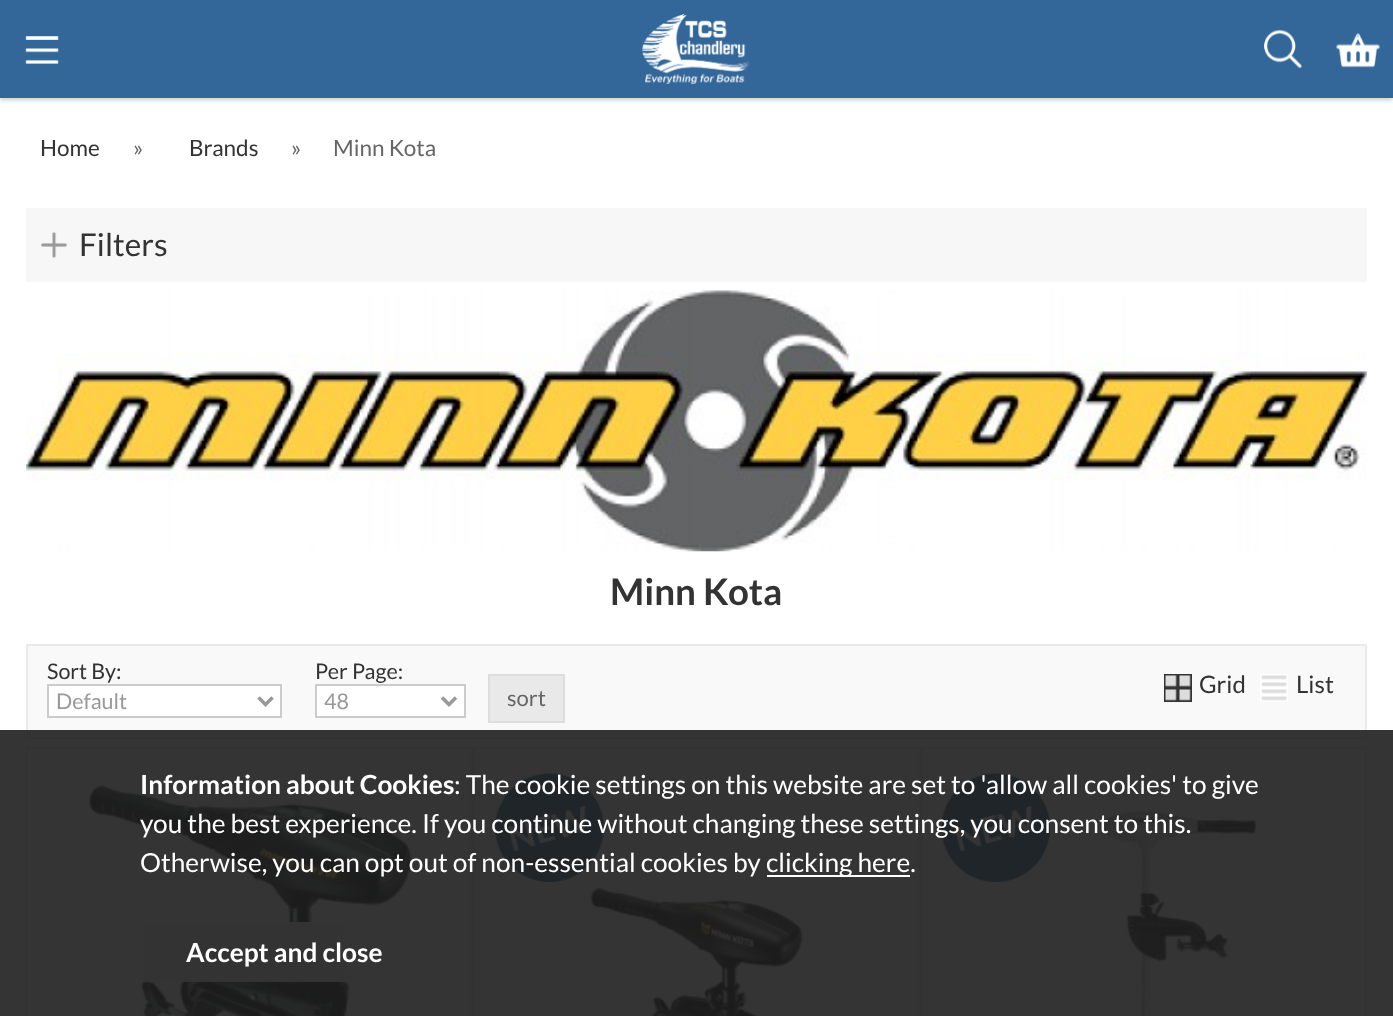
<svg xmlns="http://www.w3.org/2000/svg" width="1393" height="1016">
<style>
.a{font:22.5px Lato;fill:#333}
.b{font:22.5px Lato;fill:#666}
.c{font:31.5px Lato;fill:#333}
.d{font:bold 36.75px Lato;fill:#333}
.e{font:21.5px Lato;fill:#333}
.f{font:21.5px Lato;fill:#999}
.g{font:22px Lato;fill:#666}
.h{font:24px Lato;fill:#333}
.i{font:bold 26.25px Lato;fill:#fff}
.j{font:26.25px Lato;fill:#fff}
</style>
<rect width="100%" height="100%" fill="#fff"/>
<path fill="#00000033" filter="blur(2px)" d="M0 2h1393v98H0z"/>
<path fill="#369" d="M0 0h1393v98H0z"/>
<image href="1.png" x="25" y="36" width="34" height="28"/>
<image href="2.png" x="642" y="14" width="108" height="70"/>
<image href="3.png" x="1264" y="29" width="38" height="40"/>
<image href="4.png" x="1336" y="33" width="44" height="35"/>
<path fill="#f7f7f7" d="M26 208h1341v74H26z"/>
<image href="5.png" x="41" y="232" width="27" height="26"/>
<image href="6.png" x="26" y="290" width="1341" height="262"/>
<path fill="#f9f9f9" stroke="#eaeaea" stroke-width="2" d="M27 645h1339v93H27z"/>
<path fill="#fff" stroke="#ccc" stroke-width="2" d="M48 685h233v32H48z"/>
<path fill="none" stroke="#999" stroke-width="3.5" d="M258.5 697.5l7 7l7-7"/>
<path fill="#fff" stroke="#ccc" stroke-width="2" d="M316 685h149v32H316z"/>
<path fill="none" stroke="#999" stroke-width="3.5" d="M442 697.5l7 7l7-7"/>
<path fill="#e9e9e9" stroke="#ddd" stroke-width="2" d="M489 675h75v47H489z"/>
<path fill="#333" d="M1164 674h28v28H1164z"/>
<image href="7.png" x="1165" y="675" width="26" height="26"/>
<path fill="#fff" d="M1260 674h28v28H1260z"/>
<image href="8.png" x="1261" y="675" width="26" height="26"/>
<path fill="#eaeaea" d="M26 747h1341v2H26z"/>
<path fill="#e6e6e6" d="M471 747h2v269H471z"/>
<path fill="#eaeaea" d="M26 747h2v269H26z"/>
<image href="9.png" x="86" y="784" width="331" height="232"/>
<path fill="#e6e6e6" d="M919 747h2v269H919z"/>
<path fill="#eaeaea" d="M473 747h2v269H473z"/>
<image href="11.png" x="586" y="879" width="225" height="137"/>
<image href="10.png" x="495" y="773" width="109" height="109"/>
<path fill="#e6e6e6" d="M1365 747h2v269H1365z"/>
<path fill="#eaeaea" d="M921 747h2v269H921z"/>
<image href="12.png" x="941" y="773" width="109" height="109"/>
<image href="13.png" x="1100" y="810" width="158" height="206"/>
<path fill="#1e1e1ee6" d="M0 730h1393v286H0z"/>
<path fill="#fff" d="M767 875h143v2H767z"/>
<path fill="#333" d="M144 922h201v60H144z"/>
<text class="a" x="40" y="156">Home</text>
<text class="b" x="133" y="156">»</text>
<text class="a" x="189" y="156">Brands</text>
<text class="b" x="291" y="156">»</text>
<text class="b" x="333" y="156">Minn Kota</text>
<text class="c" x="79" y="256">Filters</text>
<text class="d" x="610" y="605">Minn Kota</text>
<text class="e" x="47" y="679">Sort By:</text>
<text class="f" x="56" y="709">Default</text>
<text class="e" x="315" y="679">Per Page:</text>
<text class="f" x="324" y="709">48</text>
<text class="g" x="507" y="706">sort</text>
<text class="h" x="1199" y="693">Grid</text>
<text class="h" x="1296" y="693">List</text>
<text class="i" x="140" y="794">Information about Cookies</text>
<text class="j" x="454" y="794">: The cookie settings on this website are set to 'allow all cookies' to give</text>
<text class="j" x="140" y="833">you the best experience. If you continue without changing these settings, you consent to this.</text>
<text class="j" x="140" y="872">Otherwise, you can opt out of non-essential cookies by</text>
<text class="j" x="766" y="872">clicking here.</text>
<text class="i" x="186" y="962">Accept and close</text>
</svg>
